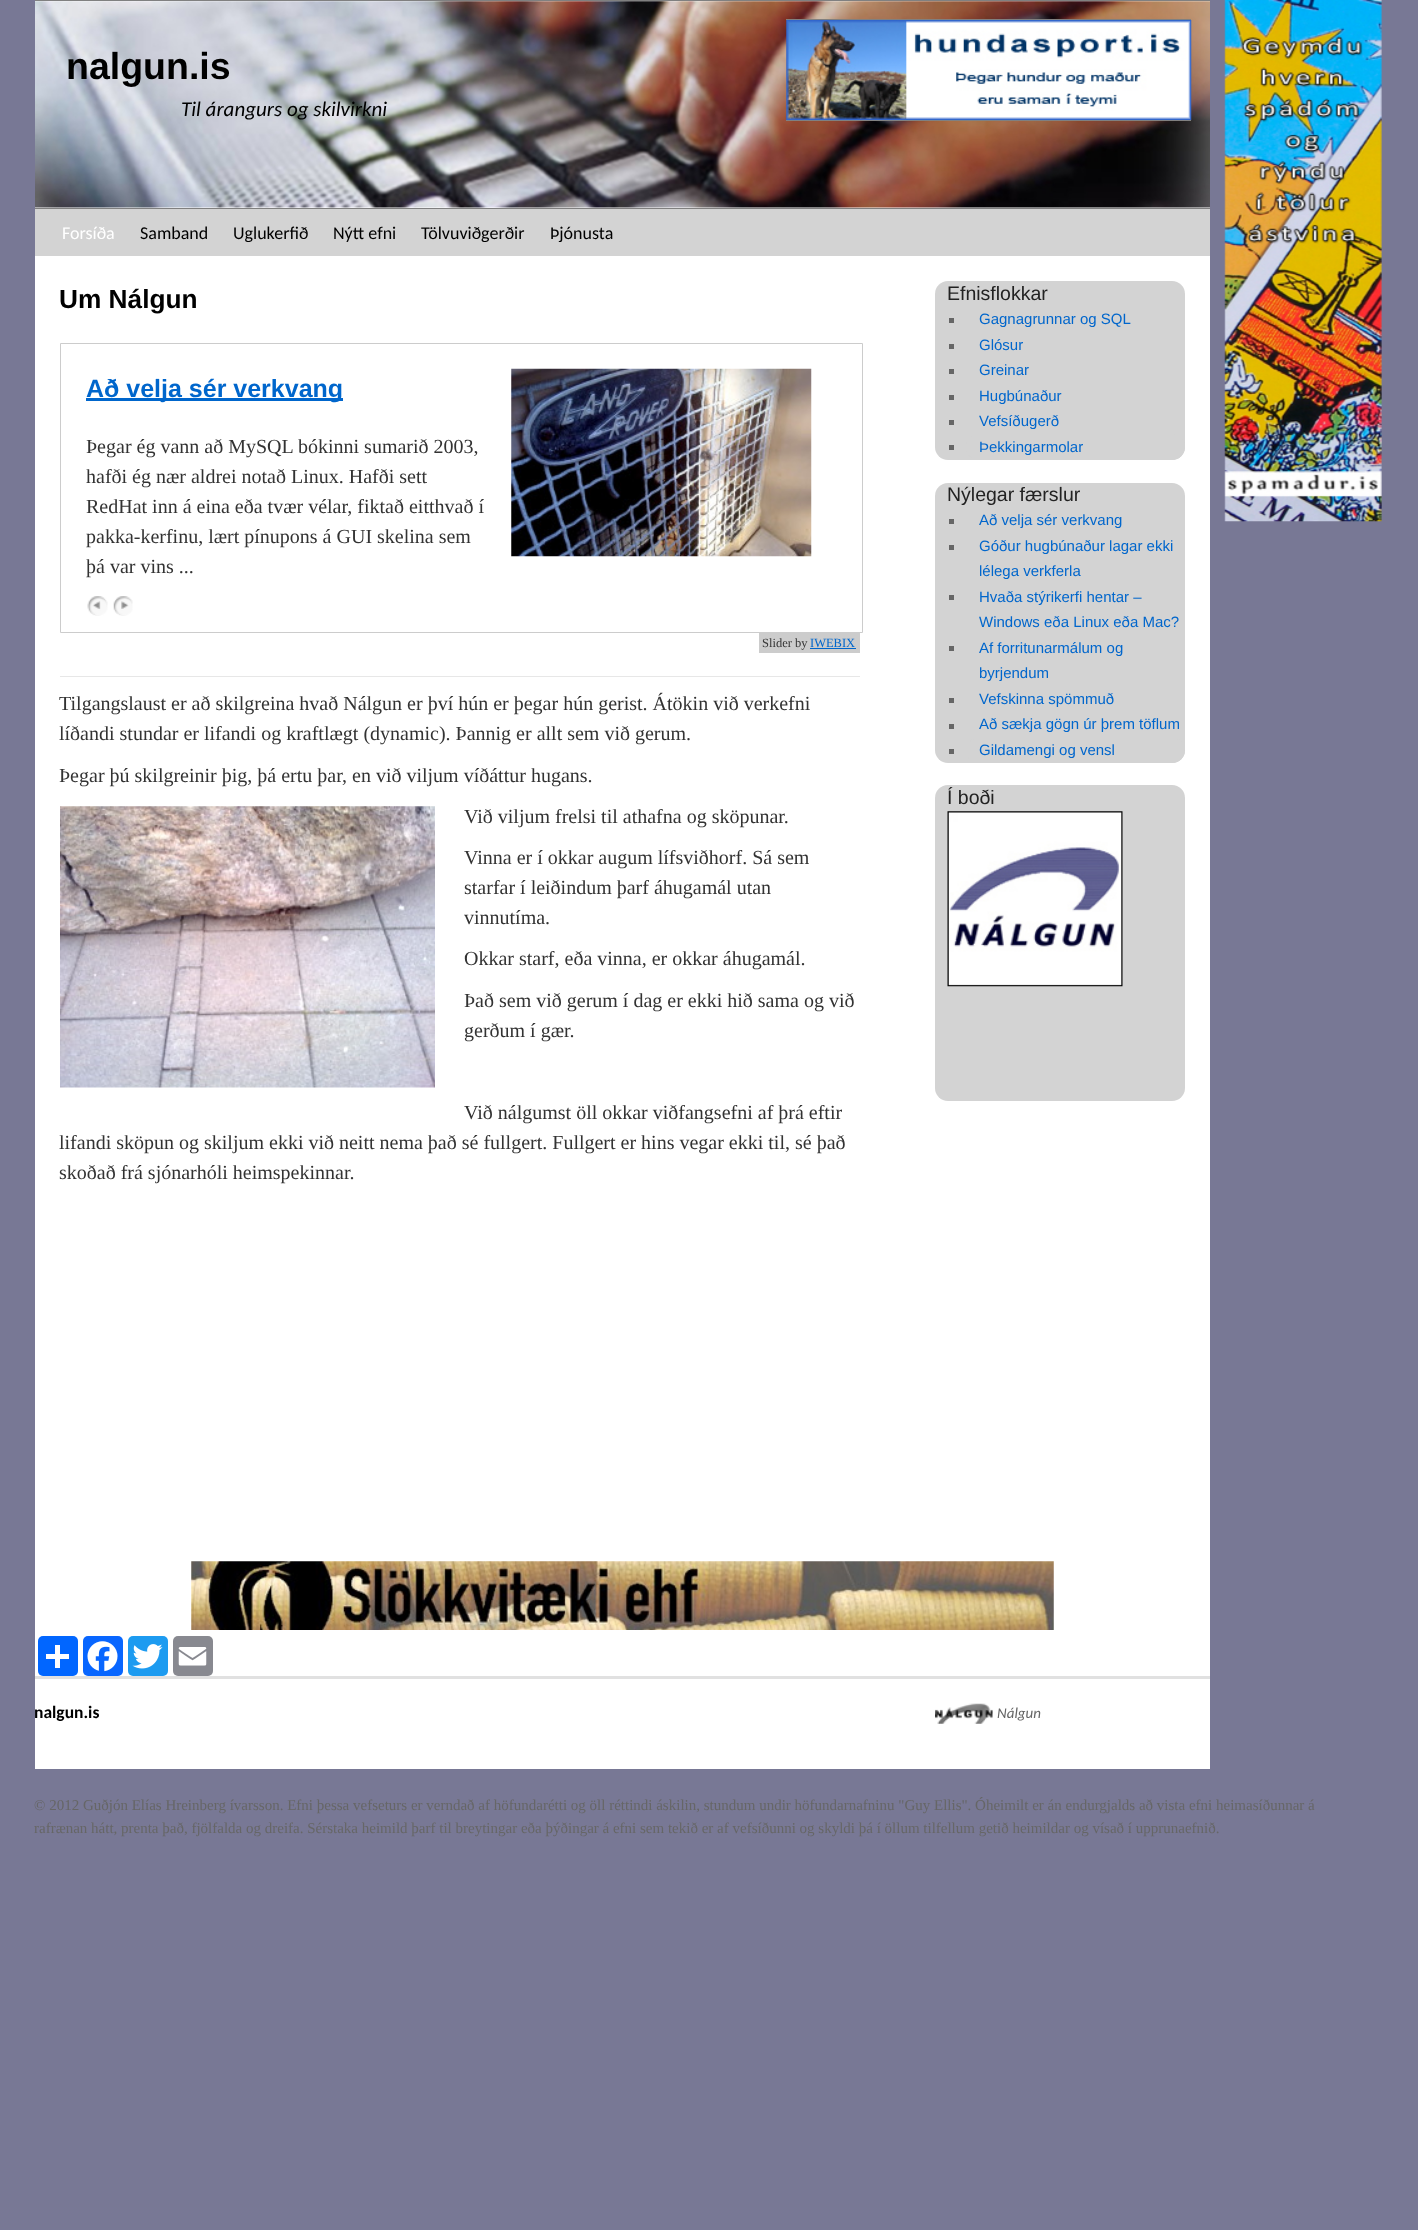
<svg xmlns="http://www.w3.org/2000/svg" width="1418" height="2230">
<style>
.a{font:bold 37.5px Liberation Sans;fill:#000}
.b{font:italic 21px Carlito;fill:#000}
.c{font:18px Carlito;fill:#fff}
.d{font:18px Carlito;fill:#000}
.e{font:bold 26.25px Liberation Sans;fill:#000}
.f{font:bold 25px Liberation Sans;fill:#06c}
.g{font:20px Liberation Serif;fill:#333}
.h{font:12.5px Liberation Serif;fill:#333}
.i{font:12.5px Liberation Serif;fill:#06c}
.j{font:19.5px Liberation Sans;fill:#222}
.k{font:15px Liberation Sans;fill:#06c}
.l{font:bold 17.5px Carlito;fill:#000}
.m{font:italic 15px Carlito;fill:#666}
.n{font:15px Liberation Serif;fill:#666}
</style>
<rect width="100%" height="100%" fill="#787895"/>
<path fill="#fff" d="M35 1h1175v1768H35z"/>
<path fill="#808080" d="M35 0h1175v1H35z"/>
<path fill="#808080" d="M35 208h1175v1H35z"/>
<image href="1.png" x="35" y="1" width="1175" height="207"/>
<path fill="#808080" d="M786 19h405v1H786z"/>
<path fill="#808080" d="M786 120h405v1H786z"/>
<image href="2.png" x="786" y="20" width="406" height="100"/>
<path fill="#d3d3d3" d="M35 209h1175v47H35z"/>
<path fill="none" stroke="#ccc" d="M60.5 343.5h802v289H60.5z"/>
<path fill="#06c" d="M86 398h257v3H86z"/>
<image href="3.png" x="511" y="368" width="301" height="189"/>
<image href="4.png" x="87" y="596" width="21" height="20"/>
<image href="5.png" x="113" y="596" width="20" height="20"/>
<path fill="#ccc" d="M759 633h101v20H759z"/>
<path fill="#06c" d="M810 648h46v1H810z"/>
<path fill="#e7e7e7" d="M60 676h800v1H60z"/>
<image href="6.png" x="60" y="806" width="375" height="282"/>
<rect fill="#d3d3d3" x="935" y="281" width="250" height="179" rx="13"/>
<path fill="#666" d="M949 318h5v5H949z"/>
<path fill="#666" d="M949 344h5v5H949z"/>
<path fill="#666" d="M949 369h5v5H949z"/>
<path fill="#666" d="M949 395h5v5H949z"/>
<path fill="#666" d="M949 420h5v5H949z"/>
<rect fill="#d3d3d3" x="966" y="434" width="219" height="26" rx="13"/>
<path fill="#666" d="M949 445h5v5H949z"/>
<rect fill="#d3d3d3" x="935" y="483" width="250" height="280" rx="13"/>
<path fill="#666" d="M949 519h5v5H949z"/>
<path fill="#666" d="M949 545h5v5H949z"/>
<path fill="#666" d="M949 595h5v5H949z"/>
<path fill="#666" d="M949 646h5v5H949z"/>
<path fill="#666" d="M949 698h5v5H949z"/>
<path fill="#666" d="M949 724h5v5H949z"/>
<rect fill="#d3d3d3" x="966" y="738" width="219" height="25" rx="12.5"/>
<path fill="#666" d="M949 749h5v5H949z"/>
<rect fill="#d3d3d3" x="935" y="785" width="250" height="316" rx="13"/>
<image href="7.png" x="947" y="811" width="176" height="176"/>
<image href="8.png" x="191" y="1561" width="863" height="69"/>
<rect fill="#0166ff" x="38" y="1636" width="40" height="40" rx="5"/>
<path fill="#fff" d="M55 1645h5v23H55z"/>
<path fill="#fff" d="M46 1654h23v5H46z"/>
<rect fill="#0866ff" x="83" y="1636" width="40" height="40" rx="5"/>
<image href="9.png" x="87" y="1641" width="31" height="31"/>
<rect fill="#1d9bf0" x="128" y="1636" width="40" height="40" rx="5"/>
<image href="10.png" x="132" y="1644" width="31" height="25"/>
<rect fill="#888990" x="173" y="1636" width="40" height="40" rx="5"/>
<image href="11.png" x="178" y="1647" width="29" height="19"/>
<path fill="#e1e1e1" d="M35 1676h1175v3H35z"/>
<image href="12.png" x="935" y="1703" width="58" height="21"/>
<image href="13.png" x="1224" y="0" width="158" height="522"/>
<text class="a" x="66" y="79">nalgun.is</text>
<text class="b" x="181" y="116">Til árangurs og skilvirkni</text>
<text class="c" x="62" y="239">Forsíða</text>
<text class="d" x="140" y="239">Samband</text>
<text class="d" x="233" y="239">Uglukerfið</text>
<text class="d" x="333" y="239">Nýtt efni</text>
<text class="d" x="421" y="239">Tölvuviðgerðir</text>
<text class="d" x="550" y="239">Þjónusta</text>
<text class="e" x="59" y="308">Um Nálgun</text>
<text class="f" x="86" y="397">Að velja sér verkvang</text>
<text class="g" x="86" y="453">Þegar ég vann að MySQL bókinni sumarið 2003,</text>
<text class="g" x="86" y="483">hafði ég nær aldrei notað Linux. Hafði sett</text>
<text class="g" x="86" y="513">RedHat inn á eina eða tvær vélar, fiktað eitthvað í</text>
<text class="g" x="86" y="543">pakka-kerfinu, lært pínupons á GUI skelina sem</text>
<text class="g" x="86" y="573">þá var vins ...</text>
<text class="h" x="762" y="647">Slider by</text>
<text class="i" x="810" y="647">IWEBIX</text>
<text class="g" x="59" y="710">Tilgangslaust er að skilgreina hvað Nálgun er því hún er þegar hún gerist. Átökin við verkefni</text>
<text class="g" x="59" y="740">líðandi stundar er lifandi og kraftlægt (dynamic). Þannig er allt sem við gerum.</text>
<text class="g" x="59" y="782">Þegar þú skilgreinir þig, þá ertu þar, en við viljum víðáttur hugans.</text>
<text class="g" x="464" y="823">Við viljum frelsi til athafna og sköpunar.</text>
<text class="g" x="464" y="864">Vinna er í okkar augum lífsviðhorf. Sá sem</text>
<text class="g" x="464" y="894">starfar í leiðindum þarf áhugamál utan</text>
<text class="g" x="464" y="924">vinnutíma.</text>
<text class="g" x="464" y="965">Okkar starf, eða vinna, er okkar áhugamál.</text>
<text class="g" x="464" y="1007">Það sem við gerum í dag er ekki hið sama og við</text>
<text class="g" x="464" y="1037">gerðum í gær.</text>
<text class="g" x="464" y="1119">Við nálgumst öll okkar viðfangsefni af þrá eftir</text>
<text class="g" x="59" y="1149">lifandi sköpun og skiljum ekki við neitt nema það sé fullgert. Fullgert er hins vegar ekki til, sé það</text>
<text class="g" x="59" y="1179">skoðað frá sjónarhóli heimspekinnar.</text>
<text class="j" x="947" y="300">Efnisflokkar</text>
<text class="k" x="979" y="324">Gagnagrunnar og SQL</text>
<text class="k" x="979" y="350">Glósur</text>
<text class="k" x="979" y="375">Greinar</text>
<text class="k" x="979" y="401">Hugbúnaður</text>
<text class="k" x="979" y="426">Vefsíðugerð</text>
<text class="k" x="979" y="452">Þekkingarmolar</text>
<text class="j" x="947" y="501">Nýlegar færslur</text>
<text class="k" x="979" y="525">Að velja sér verkvang</text>
<text class="k" x="979" y="551">Góður hugbúnaður lagar ekki</text>
<text class="k" x="979" y="576">lélega verkferla</text>
<text class="k" x="979" y="602">Hvaða stýrikerfi hentar –</text>
<text class="k" x="979" y="627">Windows eða Linux eða Mac?</text>
<text class="k" x="979" y="653">Af forritunarmálum og</text>
<text class="k" x="979" y="678">byrjendum</text>
<text class="k" x="979" y="704">Vefskinna spömmuð</text>
<text class="k" x="979" y="729">Að sækja gögn úr þrem töflum</text>
<text class="k" x="979" y="755">Gildamengi og vensl</text>
<text class="j" x="947" y="804">Í boði</text>
<text class="l" x="34" y="1718">nalgun.is</text>
<text class="m" x="997" y="1718">Nálgun</text>
<text class="n" x="34" y="1810">© 2012 Guðjón Elías Hreinberg ívarsson. Efni þessa vefseturs er verndað af höfundarétti og öll réttindi áskilin, stundum undir höfundarnafninu "Guy Ellis". Óheimilt er án endurgjalds að vista efni heimasíðunnar á</text>
<text class="n" x="34" y="1833">rafrænan hátt, prenta það, fjölfalda og dreifa. Sérstaka heimild þarf til breytingar eða þýðingar á efni sem tekið er af vefsíðunni og skyldi þá í öllum tilfellum getið heimildar og vísað í upprunaefnið.</text>
</svg>
